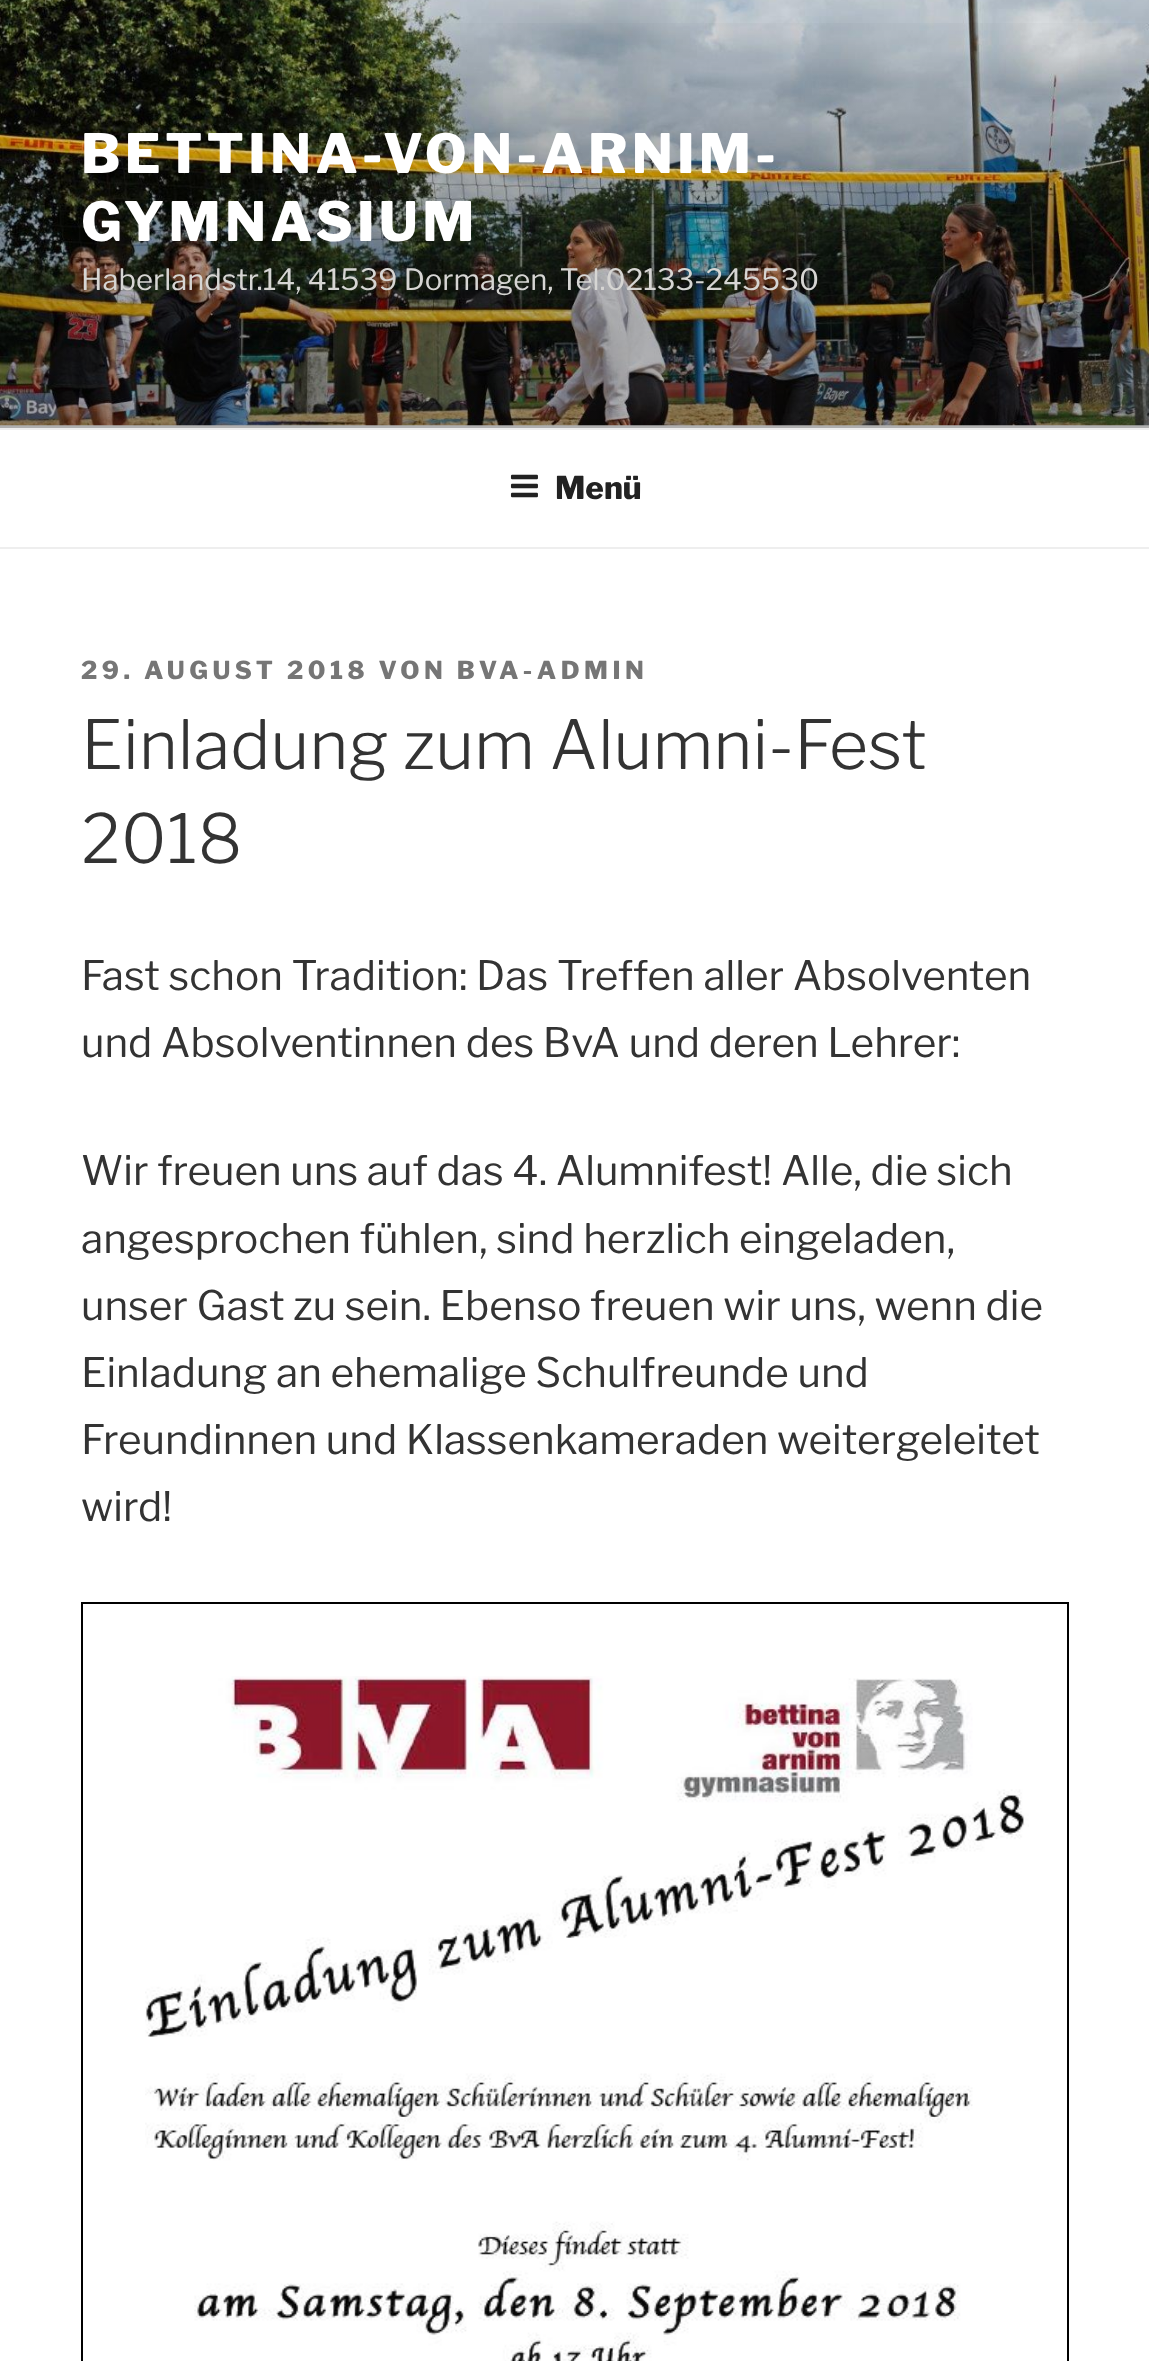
<svg xmlns="http://www.w3.org/2000/svg" width="1149" height="2361">
<style>
.a{font:800 54px Libre Franklin;letter-spacing:4.3px;fill:#fff}
.b{font:29.25px Libre Franklin;fill:#d6d5d3}
.c{font:800 31.5px Libre Franklin;fill:#222}
.d{font:800 24.75px Libre Franklin;letter-spacing:4.5px;fill:#767676}
.e{font:300 67.5px Libre Franklin;fill:#333}
.f{font:40.5px Libre Franklin;fill:#333}
</style>
<defs>
<linearGradient id="g1" gradientUnits="userSpaceOnUse" x1="575" y1="0" x2="575" y2="428"><stop offset="0" stop-color="#000" stop-opacity="0"/><stop offset="0.75" stop-color="#000" stop-opacity="0.3"/><stop offset="1" stop-color="#000" stop-opacity="0.3"/></linearGradient>
</defs>
<rect width="100%" height="100%" fill="#fff"/>
<path fill="#fafafa" d="M0 425h1149v3H0z"/>
<image href="1.png" x="0" y="0" width="1149" height="426"/>
<path fill="url(#g1)" d="M0 23h1149v405H0z"/>
<path fill="#eee" d="M0 428h1149v2H0z"/>
<path fill="#eee" d="M0 547h1149v2H0z"/>
<image href="2.png" x="510" y="474" width="28" height="24"/>
<path fill="none" stroke="#000" stroke-width="2" d="M82 1603h986v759H82z"/>
<image href="3.png" x="145" y="1676" width="884" height="685"/>
<text class="a" x="81" y="173">BETTINA-VON-ARNIM-</text>
<text class="a" x="81" y="241">GYMNASIUM</text>
<text class="b" x="81" y="290">Haberlandstr.14, 41539 Dormagen, Tel.02133-245530</text>
<text class="c" x="555" y="499">Menü</text>
<text class="d" x="81" y="679">29. AUGUST 2018 VON BVA-ADMIN</text>
<text class="e" x="81" y="769">Einladung zum Alumni-Fest</text>
<text class="e" x="81" y="863">2018</text>
<text class="f" x="81" y="990">Fast schon Tradition: Das Treffen aller Absolventen</text>
<text class="f" x="81" y="1057">und Absolventinnen des BvA und deren Lehrer:</text>
<text class="f" x="81" y="1185">Wir freuen uns auf das 4. Alumnifest! Alle, die sich</text>
<text class="f" x="81" y="1253">angesprochen fühlen, sind herzlich eingeladen,</text>
<text class="f" x="81" y="1320">unser Gast zu sein. Ebenso freuen wir uns, wenn die</text>
<text class="f" x="81" y="1387">Einladung an ehemalige Schulfreunde und</text>
<text class="f" x="81" y="1454">Freundinnen und Klassenkameraden weitergeleitet</text>
<text class="f" x="81" y="1521">wird!</text>
</svg>
